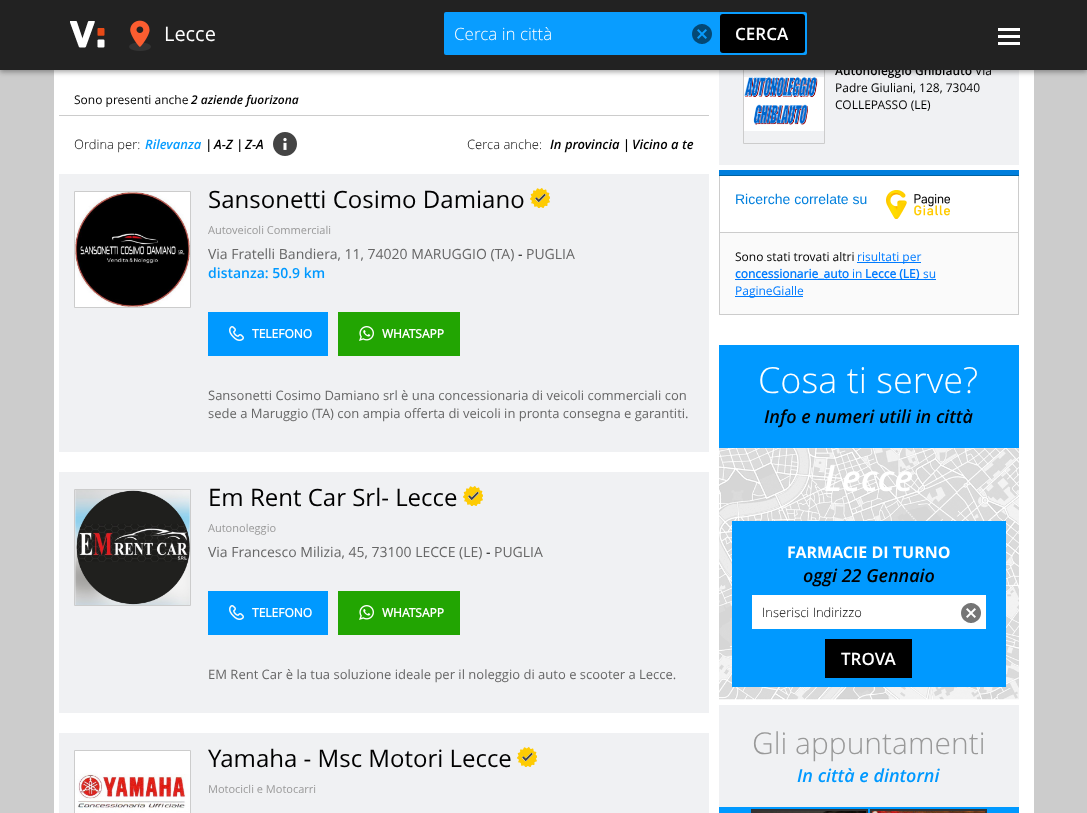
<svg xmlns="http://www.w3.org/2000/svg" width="1087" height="813">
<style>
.a{font:12px Open Sans;fill:#000}
.b{font:italic 600 12px Open Sans;fill:#000}
.c{font:300 13px Open Sans;fill:#000}
.d{font:italic 600 13px Open Sans;fill:#099dff}
.e{font:italic 600 13px Open Sans;fill:#000}
.f{font:24px Open Sans;fill:#000}
.g{font:11px Open Sans;fill:#999}
.h{font:14px Open Sans;fill:#666}
.i{font:14px Open Sans;fill:#000}
.j{font:600 14px Open Sans;fill:#09f}
.k{font:bold 12px Open Sans;fill:#fff}
.l{font:13px Open Sans;fill:#666}
.m{font:600 12px Open Sans;fill:#000}
.n{font:600 17px Open Sans;fill:#fff}
.o{font:300 17px Open Sans;fill:#fff}
.p{font:20px Open Sans;fill:#fff}
.q{font:14px Liberation Sans;fill:#007fdd}
.r{font:12px Open Sans;fill:#007bff}
.s{font:bold 12px Open Sans;fill:#007bff}
.t{font:300 36px Open Sans;fill:#fff}
.u{font:italic 600 18px Open Sans;fill:#000}
.v{font:italic 600 36px Open Sans;fill:#fff}
.w{font:bold 16px 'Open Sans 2';fill:#fff}
.x{font:300 30px Open Sans;fill:#999}
.y{font:italic 600 18px Open Sans;fill:#09f}
</style>
<rect width="100%" height="100%" fill="#ccc"/>
<path fill="#fff" d="M54 70h980v743H54z"/>
<path fill="#f0f1f3" d="M719 70h300v95H719z"/>
<path fill="none" stroke="#ccc" d="M743.5 62.5h81v81H743.5z"/>
<image href="11.png" x="744" y="77" width="80" height="54"/>
<path fill="#0000001f" filter="blur(3px)" d="M0 2h1087v70H0z"/>
<path fill="#0000003d" filter="blur(2px)" d="M0 2h1087v70H0z"/>
<path fill="#ccc" d="M59 115h650v1H59z"/>
<image href="4.png" x="273" y="132" width="24" height="24"/>
<path fill="#f0f1f3" d="M59 174h650v278H59z"/>
<path fill="none" stroke="#ccc" d="M74.5 191.5h116v116H74.5z"/>
<image href="5.png" x="75" y="192" width="115" height="115"/>
<image href="6.png" x="530" y="188" width="20" height="20"/>
<path fill="#09f" d="M208 312h120v44H208z"/>
<image href="7.png" x="229" y="326" width="15" height="15"/>
<path fill="#22a502" d="M338 312h122v44H338z"/>
<image href="8.png" x="359" y="326" width="15" height="15"/>
<path fill="#f0f1f3" d="M59 472h650v241H59z"/>
<path fill="none" stroke="#ccc" d="M74.5 489.5h116v116H74.5z"/>
<image href="9.png" x="75" y="490" width="115" height="115"/>
<image href="6.png" x="463" y="486" width="20" height="20"/>
<path fill="#09f" d="M208 591h120v44H208z"/>
<image href="7.png" x="229" y="605" width="15" height="15"/>
<path fill="#22a502" d="M338 591h122v44H338z"/>
<image href="8.png" x="359" y="605" width="15" height="15"/>
<path fill="#f0f1f3" d="M59 733h650v80H59z"/>
<path fill="none" stroke="#ccc" d="M74.5 750.5h116v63H74.5z"/>
<image href="10.png" x="75" y="751" width="115" height="62"/>
<image href="6.png" x="517" y="747" width="20" height="20"/>
<path fill="#fafafa" d="M720 233h298v81H720z"/>
<path fill="#007fdd" d="M719 170h300v5H719z"/>
<path fill="#0063a1" d="M719 175h300v1H719z"/>
<path fill="#ccc" d="M1018 176h1v139H1018z"/>
<path fill="#ccc" d="M719 314h300v1H719z"/>
<path fill="#ccc" d="M719 176h1v139H719z"/>
<path fill="#ccc" d="M720 232h298v1H720z"/>
<image href="12.png" x="886" y="190" width="64" height="29"/>
<path fill="#007bff" d="M857 262h64v1H857z"/>
<path fill="#007bff" d="M735 279h201v1H735z"/>
<path fill="#007bff" d="M735 296h68v1H735z"/>
<path fill="#09f" d="M719 345h300v103H719z"/>
<image href="13.png" x="719" y="448" width="300" height="252"/>
<path fill="#09f" d="M732 521h274v166H732z"/>
<path fill="#fff" d="M752 595h234v34H752z"/>
<image href="14.png" x="961" y="603" width="20" height="20"/>
<path fill="#000" d="M825 639h87v39H825z"/>
<path fill="#f0f1f3" d="M719 705h300v102H719z"/>
<path fill="#09f" d="M719 807h300v6H719z"/>
<path fill="#333" d="M751 809h117v4H751z"/>
<image href="15.png" x="757" y="811" width="109" height="2"/>
<path fill="#333" d="M870 809h117v4H870z"/>
<image href="16.png" x="872" y="811" width="113" height="2"/>
<text class="a" x="74" y="104">Sono presenti anche</text>
<text class="b" x="191" y="104">2 aziende fuorizona</text>
<text class="c" x="74" y="149">Ordina per:</text>
<text class="d" x="145" y="149">Rilevanza</text>
<text class="e" x="205" y="149">|</text>
<text class="e" x="214" y="149">A-Z |</text>
<text class="e" x="245" y="149">Z-A</text>
<text class="c" x="467" y="149">Cerca anche:</text>
<text class="e" x="550" y="149">In provincia |</text>
<text class="e" x="632" y="149">Vicino a te</text>
<text class="f" x="208" y="208">Sansonetti Cosimo Damiano</text>
<text class="g" x="208" y="234">Autoveicoli Commerciali</text>
<text class="h" x="208" y="259">Via Fratelli Bandiera, 11, 74020 MARUGGIO (TA)</text>
<text class="i" x="518" y="259">-</text>
<text class="h" x="526" y="259">PUGLIA</text>
<text class="j" x="208" y="278">distanza: 50.9 km</text>
<text class="k" x="252" y="338">TELEFONO</text>
<text class="k" x="382" y="338">WHATSAPP</text>
<text class="l" x="208" y="400">Sansonetti Cosimo Damiano srl è una concessionaria di veicoli commerciali con</text>
<text class="l" x="208" y="418">sede a Maruggio (TA) con ampia offerta di veicoli in pronta consegna e garantiti.</text>
<text class="f" x="208" y="506">Em Rent Car Srl- Lecce</text>
<text class="g" x="208" y="532">Autonoleggio</text>
<text class="h" x="208" y="557">Via Francesco Milizia, 45, 73100 LECCE (LE)</text>
<text class="i" x="486" y="557">-</text>
<text class="h" x="494" y="557">PUGLIA</text>
<text class="k" x="252" y="617">TELEFONO</text>
<text class="k" x="382" y="617">WHATSAPP</text>
<text class="l" x="208" y="679">EM Rent Car è la tua soluzione ideale per il noleggio di auto e scooter a Lecce.</text>
<text class="f" x="208" y="767">Yamaha - Msc Motori Lecce</text>
<text class="g" x="208" y="793">Motocicli e Motocarri</text>
<text class="m" x="835" y="75">Autonoleggio Ghiblauto</text>
<text class="a" x="975" y="75">Via</text>
<path fill="#222" d="M0 0h1087v70H0z"/>
<path fill="#fff" d="M998 42h22v3H998z"/>
<path fill="#fff" d="M998 35h22v3H998z"/>
<path fill="#fff" d="M998 28h22v3H998z"/>
<rect fill="#099dff" x="444" y="12" width="363" height="43" rx="2"/>
<rect fill="#000" x="720" y="14" width="85" height="39" rx="3"/>
<text class="n" x="735" y="40">CERCA</text>
<image href="3.png" x="692" y="24" width="20" height="20"/>
<text class="o" x="454" y="40">Cerca in città</text>
<image href="2.png" x="129" y="20" width="22" height="31"/>
<text class="p" x="164" y="41">Lecce</text>
<image href="1.png" x="70" y="21" width="35" height="27"/>
<text class="a" x="835" y="92">Padre Giuliani, 128, 73040</text>
<text class="a" x="835" y="109">COLLEPASSO (LE)</text>
<text class="q" x="735" y="204">Ricerche correlate su</text>
<text class="a" x="735" y="261">Sono stati trovati altri</text>
<text class="r" x="857" y="261">risultati per</text>
<text class="s" x="735" y="278">concessionarie_auto</text>
<text class="r" x="852" y="278">in</text>
<text class="s" x="865" y="278">Lecce (LE)</text>
<text class="r" x="923" y="278">su</text>
<text class="r" x="735" y="295">PagineGialle</text>
<text class="t" x="758" y="393">Cosa ti serve?</text>
<text class="u" x="764" y="423">Info e numeri utili in città</text>
<text class="v" x="824" y="491">Lecce</text>
<text class="w" x="787" y="558">FARMACIE DI TURNO</text>
<text class="u" x="803" y="582">oggi 22 Gennaio</text>
<text class="c" x="762" y="617">Inserisci Indirizzo</text>
<text class="n" x="841" y="665">TROVA</text>
<text class="x" x="752" y="754">Gli appuntamenti</text>
<text class="y" x="797" y="782">In città e dintorni</text>
</svg>
